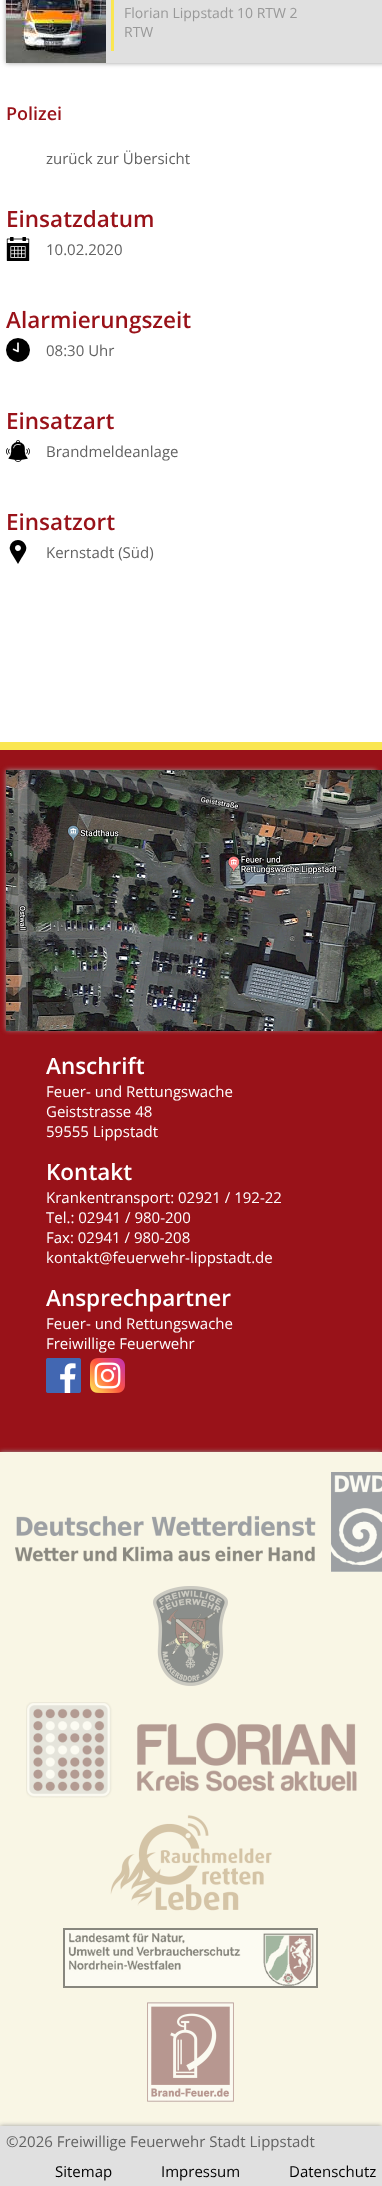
<svg xmlns="http://www.w3.org/2000/svg" width="382" height="2186">
<style>
.a{font:14px Open Sans;fill:#999}
.b{font:600 18px Open Sans;fill:#991219}
.c{font:15px Open Sans;fill:#626262}
.d{font:600 22.5px Open Sans;fill:#991219}
.e{font:600 22.5px Open Sans;fill:#fff}
.f{font:15px Open Sans;fill:#fff}
.g{font:15px Open Sans;fill:#000}
</style>
<rect width="100%" height="100%" fill="#fff"/>
<path fill="#999" filter="blur(2.5px)" d="M6 -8h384v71H6z"/>
<path fill="#e0e0e0" d="M106 0h276v63H106z"/>
<image href="1.png" x="6" y="0" width="100" height="63"/>
<path fill="#fae651" d="M111 0h3v51H111z"/>
<image href="2.png" x="6" y="237" width="24" height="24"/>
<image href="3.png" x="6" y="338" width="24" height="24"/>
<image href="4.png" x="6" y="440" width="24" height="22"/>
<image href="5.png" x="9" y="540" width="18" height="24"/>
<path fill="#991219" d="M0 750h382v702H0z"/>
<path fill="#fae651" d="M0 742h382v8H0z"/>
<path fill="#999" filter="blur(2.5px)" d="M6 770h370v260H6z"/>
<image href="6.png" x="6" y="770" width="376" height="261"/>
<image href="7.png" x="46" y="1358" width="35" height="35"/>
<image href="8.png" x="90" y="1358" width="35" height="35"/>
<path fill="#999" filter="blur(2.5px)" d="M0 1452h382v734H0z"/>
<path fill="#f9f6e5" d="M0 1452h382v674H0z"/>
<image href="9.png" x="15" y="1472" width="367" height="100"/>
<image href="10.png" x="153" y="1586" width="75" height="100"/>
<image href="11.png" x="26" y="1702" width="331" height="96"/>
<image href="12.png" x="110" y="1815" width="162" height="96"/>
<image href="13.png" x="63" y="1928" width="255" height="60"/>
<image href="14.png" x="147" y="2002" width="87" height="100"/>
<path fill="#999" filter="blur(2.5px)" d="M0 2126h382v60H0z"/>
<path fill="#e0e0e0" d="M0 2126h382v60H0z"/>
<text class="a" x="124" y="18">Florian Lippstadt 10 RTW 2</text>
<text class="a" x="124" y="37">RTW</text>
<text class="b" x="6" y="120">Polizei</text>
<text class="c" x="46" y="164">zurück zur Übersicht</text>
<text class="d" x="6" y="227">Einsatzdatum</text>
<text class="c" x="46" y="255">10.02.2020</text>
<text class="d" x="6" y="328">Alarmierungszeit</text>
<text class="c" x="46" y="356">08:30 Uhr</text>
<text class="d" x="6" y="429">Einsatzart</text>
<text class="c" x="46" y="457">Brandmeldeanlage</text>
<text class="d" x="6" y="530">Einsatzort</text>
<text class="c" x="46" y="558">Kernstadt (Süd)</text>
<text class="e" x="46" y="1074">Anschrift</text>
<text class="f" x="46" y="1097">Feuer- und Rettungswache</text>
<text class="f" x="46" y="1117">Geiststrasse 48</text>
<text class="f" x="46" y="1137">59555 Lippstadt</text>
<text class="e" x="46" y="1180">Kontakt</text>
<text class="f" x="46" y="1203">Krankentransport: 02921 / 192-22</text>
<text class="f" x="46" y="1223">Tel.: 02941 / 980-200</text>
<text class="f" x="46" y="1243">Fax: 02941 / 980-208</text>
<text class="f" x="46" y="1263">kontakt@feuerwehr-lippstadt.de</text>
<text class="e" x="46" y="1306">Ansprechpartner</text>
<text class="f" x="46" y="1329">Feuer- und Rettungswache</text>
<text class="f" x="46" y="1349">Freiwillige Feuerwehr</text>
<text class="c" x="6" y="2147">©2026 Freiwillige Feuerwehr Stadt Lippstadt</text>
<text class="g" x="55" y="2177">Sitemap</text>
<text class="g" x="161" y="2177">Impressum</text>
<text class="g" x="289" y="2177">Datenschutz</text>
</svg>
